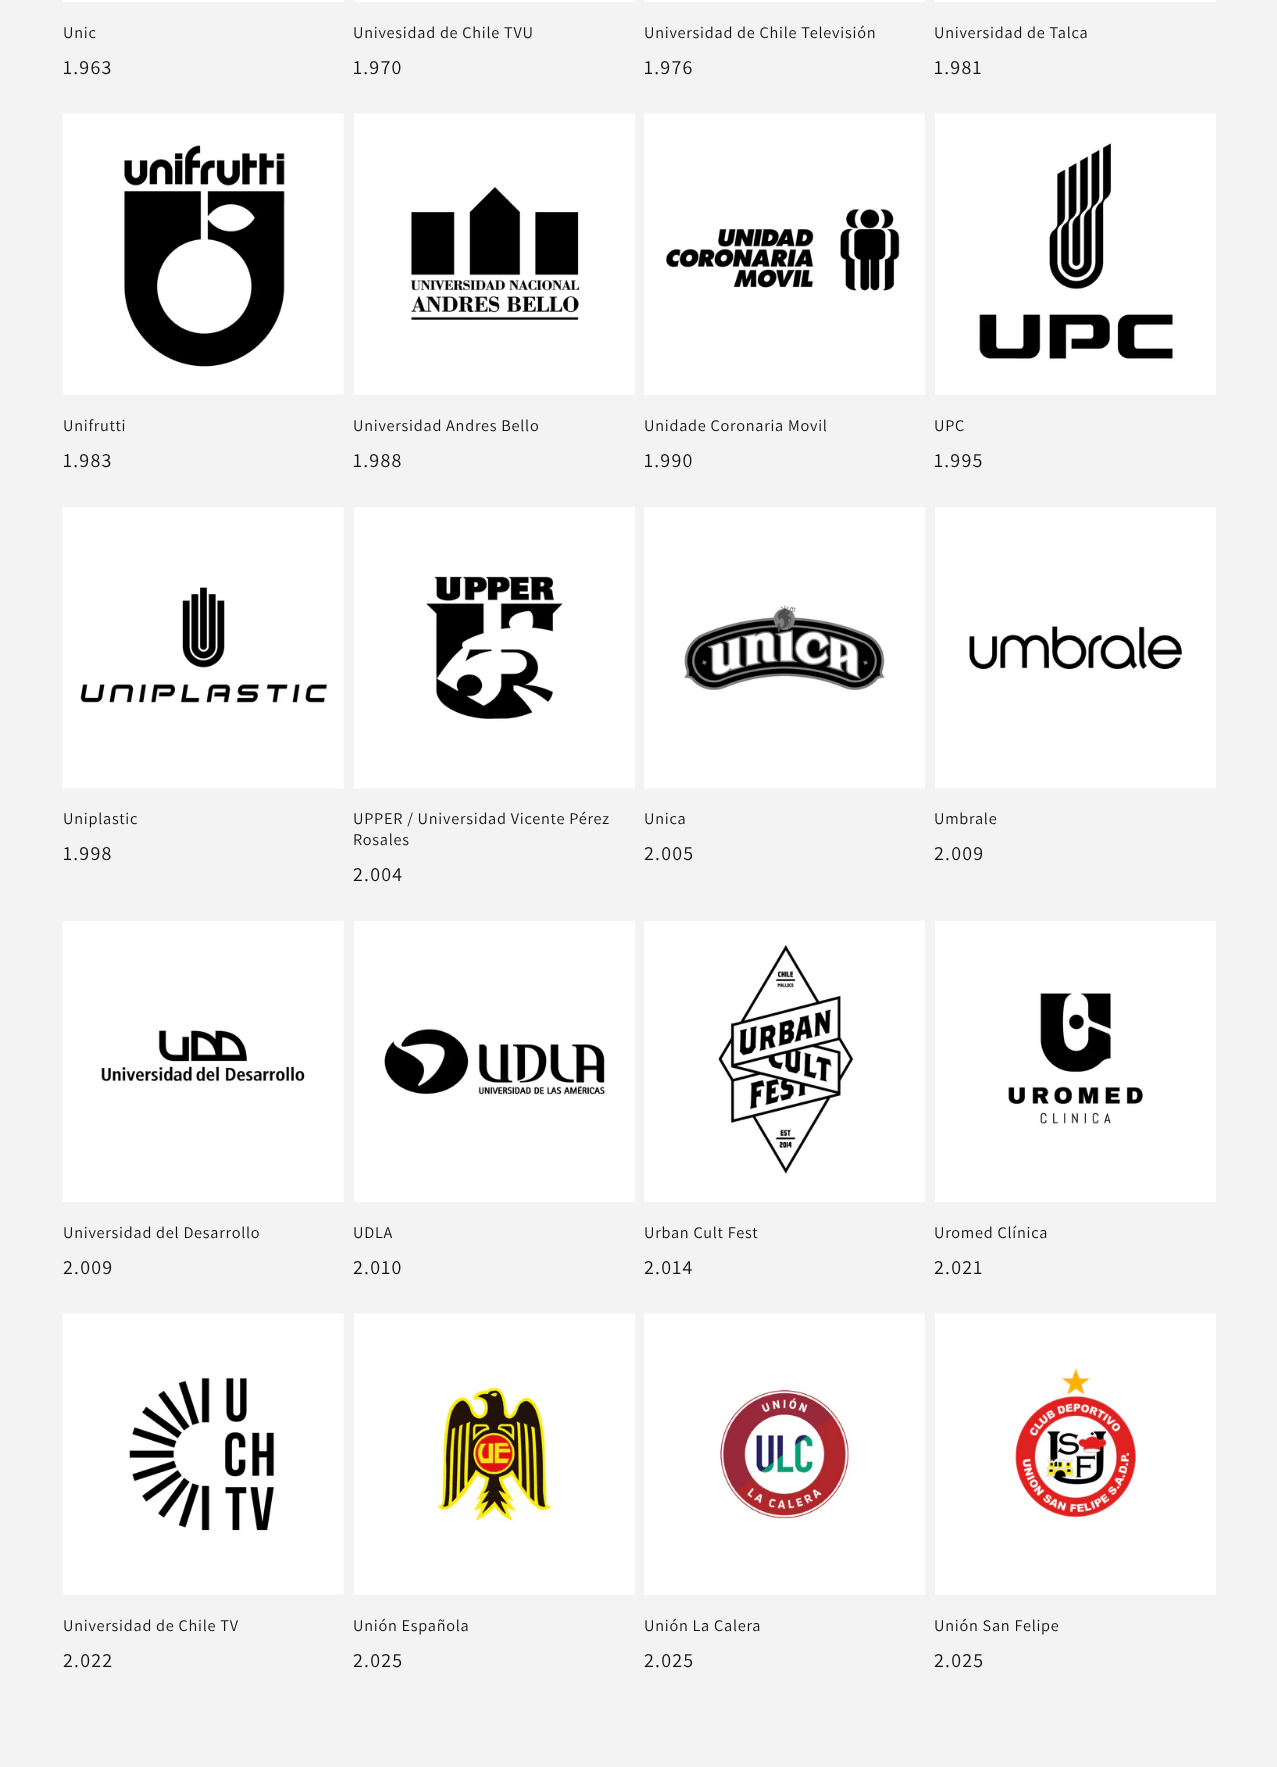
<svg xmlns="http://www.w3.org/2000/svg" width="1277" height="1767">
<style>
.a{font:16.25px Assistant;letter-spacing:0.75px;fill:#121212}
.b{font:20px Assistant;letter-spacing:1.25px;fill:#121212}
</style>
<rect width="100%" height="100%" fill="#f3f3f3"/>
<path fill="#fff" d="M63 0h281v2H63z"/>
<path fill="#fff" d="M354 0h281v2H354z"/>
<path fill="#fff" d="M644 0h281v2H644z"/>
<path fill="#fff" d="M935 0h281v2H935z"/>
<image href="1.png" x="62" y="113" width="282" height="282"/>
<image href="2.png" x="354" y="113" width="281" height="282"/>
<image href="3.png" x="644" y="113" width="281" height="282"/>
<image href="4.png" x="935" y="113" width="281" height="282"/>
<image href="5.png" x="62" y="507" width="282" height="282"/>
<image href="6.png" x="354" y="507" width="281" height="282"/>
<image href="7.png" x="644" y="507" width="281" height="282"/>
<image href="8.png" x="935" y="507" width="281" height="282"/>
<image href="9.png" x="62" y="921" width="282" height="281"/>
<image href="10.png" x="354" y="921" width="281" height="281"/>
<image href="11.png" x="644" y="921" width="281" height="281"/>
<image href="12.png" x="935" y="921" width="281" height="281"/>
<image href="13.png" x="62" y="1313" width="282" height="282"/>
<image href="14.png" x="354" y="1313" width="281" height="282"/>
<image href="15.png" x="644" y="1313" width="281" height="282"/>
<image href="16.png" x="935" y="1313" width="281" height="282"/>
<text class="a" x="63" y="38">Unic</text>
<text class="b" x="63" y="74">1.963</text>
<text class="a" x="353" y="38">Univesidad de Chile TVU</text>
<text class="b" x="353" y="74">1.970</text>
<text class="a" x="644" y="38">Universidad de Chile Televisión</text>
<text class="b" x="644" y="74">1.976</text>
<text class="a" x="934" y="38">Universidad de Talca</text>
<text class="b" x="934" y="74">1.981</text>
<text class="a" x="63" y="431">Unifrutti</text>
<text class="b" x="63" y="467">1.983</text>
<text class="a" x="353" y="431">Universidad Andres Bello</text>
<text class="b" x="353" y="467">1.988</text>
<text class="a" x="644" y="431">Unidade Coronaria Movil</text>
<text class="b" x="644" y="467">1.990</text>
<text class="a" x="934" y="431">UPC</text>
<text class="b" x="934" y="467">1.995</text>
<text class="a" x="63" y="824">Uniplastic</text>
<text class="b" x="63" y="860">1.998</text>
<text class="a" x="353" y="824">UPPER / Universidad Vicente Pérez</text>
<text class="a" x="353" y="845">Rosales</text>
<text class="b" x="353" y="881">2.004</text>
<text class="a" x="644" y="824">Unica</text>
<text class="b" x="644" y="860">2.005</text>
<text class="a" x="934" y="824">Umbrale</text>
<text class="b" x="934" y="860">2.009</text>
<text class="a" x="63" y="1238">Universidad del Desarrollo</text>
<text class="b" x="63" y="1274">2.009</text>
<text class="a" x="353" y="1238">UDLA</text>
<text class="b" x="353" y="1274">2.010</text>
<text class="a" x="644" y="1238">Urban Cult Fest</text>
<text class="b" x="644" y="1274">2.014</text>
<text class="a" x="934" y="1238">Uromed Clínica</text>
<text class="b" x="934" y="1274">2.021</text>
<text class="a" x="63" y="1631">Universidad de Chile TV</text>
<text class="b" x="63" y="1667">2.022</text>
<text class="a" x="353" y="1631">Unión Española</text>
<text class="b" x="353" y="1667">2.025</text>
<text class="a" x="644" y="1631">Unión La Calera</text>
<text class="b" x="644" y="1667">2.025</text>
<text class="a" x="934" y="1631">Unión San Felipe</text>
<text class="b" x="934" y="1667">2.025</text>
</svg>
